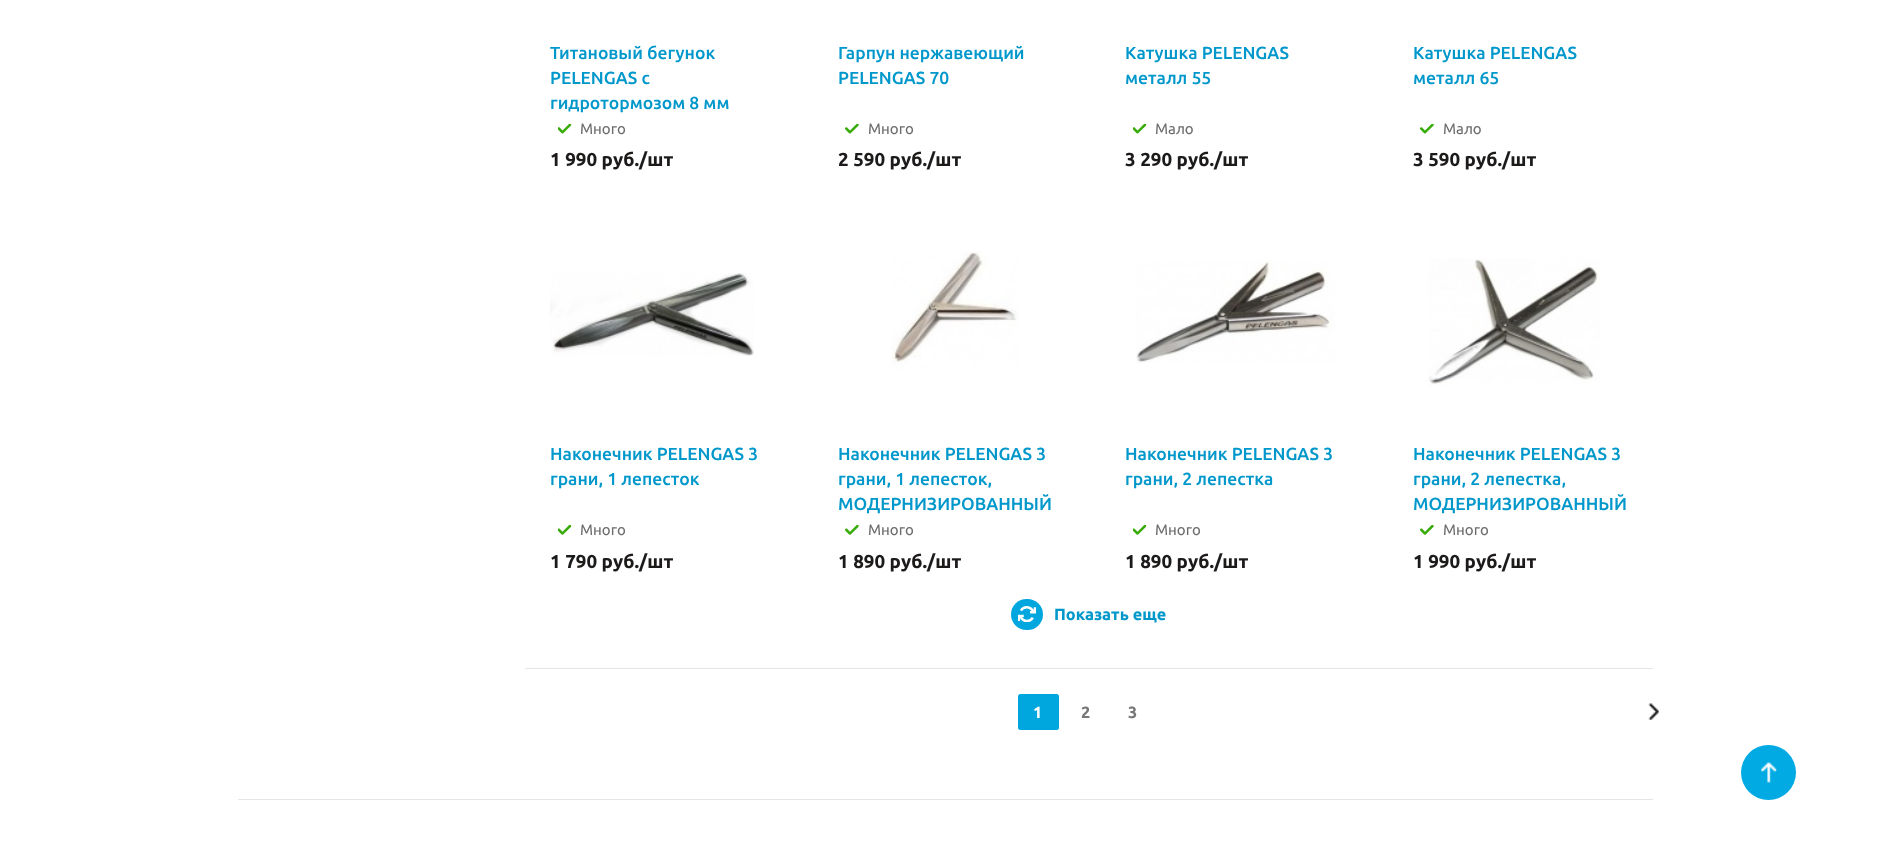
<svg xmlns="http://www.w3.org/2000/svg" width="1889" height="868">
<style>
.a{font:500 17.5px Ubuntu;fill:#0097cb}
.b{font:15px Ubuntu;fill:#6d6d6d}
.c{font:bold 18.75px Ubuntu;fill:#1d1a1a}
.d{font:bold 16.25px Ubuntu;fill:#0097cb}
.e{font:bold 16.25px Ubuntu;fill:#fff}
.f{font:bold 16.25px Ubuntu;fill:#777}
</style>
<rect width="100%" height="100%" fill="#fff"/>
<image href="1.png" x="558" y="124" width="14" height="10"/>
<image href="2.png" x="845" y="124" width="14" height="10"/>
<image href="1.png" x="1133" y="124" width="14" height="10"/>
<image href="2.png" x="1420" y="124" width="14" height="10"/>
<image href="3.png" x="550" y="273" width="204" height="83"/>
<image href="4.png" x="558" y="525" width="14" height="10"/>
<image href="5.png" x="891" y="251" width="128" height="119"/>
<image href="6.png" x="845" y="525" width="14" height="10"/>
<image href="7.png" x="1136" y="260" width="199" height="103"/>
<image href="4.png" x="1133" y="525" width="14" height="10"/>
<image href="8.png" x="1428" y="258" width="172" height="129"/>
<image href="6.png" x="1420" y="525" width="14" height="10"/>
<rect fill="#00a7df" x="1011" y="599" width="32" height="31" rx="15.5"/>
<image href="9.png" x="1018" y="606" width="18" height="16"/>
<path fill="#e5e5e5" d="M525 668h1128v1H525z"/>
<rect fill="#00a7df" x="1018" y="694" width="41" height="36" rx="2.5"/>
<image href="10.png" x="1648" y="703" width="11" height="17"/>
<path fill="#e5e5e5" d="M238 799h1415v1H238z"/>
<circle fill="#01aae3" cx="1768.5" cy="772.5" r="27.5"/>
<image href="11.png" x="1761" y="762" width="16" height="21"/>
<text class="a" x="550" y="59">Титановый бегунок</text>
<text class="a" x="550" y="84">PELENGAS с</text>
<text class="a" x="550" y="109">гидротормозом 8 мм</text>
<text class="b" x="580" y="134">Много</text>
<text class="c" x="550" y="166">1 990 руб./шт</text>
<text class="a" x="838" y="59">Гарпун нержавеющий</text>
<text class="a" x="838" y="84">PELENGAS 70</text>
<text class="b" x="868" y="134">Много</text>
<text class="c" x="838" y="166">2 590 руб./шт</text>
<text class="a" x="1125" y="59">Катушка PELENGAS</text>
<text class="a" x="1125" y="84">металл 55</text>
<text class="b" x="1155" y="134">Мало</text>
<text class="c" x="1125" y="166">3 290 руб./шт</text>
<text class="a" x="1413" y="59">Катушка PELENGAS</text>
<text class="a" x="1413" y="84">металл 65</text>
<text class="b" x="1443" y="134">Мало</text>
<text class="c" x="1413" y="166">3 590 руб./шт</text>
<text class="a" x="550" y="460">Наконечник PELENGAS 3</text>
<text class="a" x="550" y="485">грани, 1 лепесток</text>
<text class="b" x="580" y="535">Много</text>
<text class="c" x="550" y="568">1 790 руб./шт</text>
<text class="a" x="838" y="460">Наконечник PELENGAS 3</text>
<text class="a" x="838" y="485">грани, 1 лепесток,</text>
<text class="a" x="838" y="510">МОДЕРНИЗИРОВАННЫЙ</text>
<text class="b" x="868" y="535">Много</text>
<text class="c" x="838" y="568">1 890 руб./шт</text>
<text class="a" x="1125" y="460">Наконечник PELENGAS 3</text>
<text class="a" x="1125" y="485">грани, 2 лепестка</text>
<text class="b" x="1155" y="535">Много</text>
<text class="c" x="1125" y="568">1 890 руб./шт</text>
<text class="a" x="1413" y="460">Наконечник PELENGAS 3</text>
<text class="a" x="1413" y="485">грани, 2 лепестка,</text>
<text class="a" x="1413" y="510">МОДЕРНИЗИРОВАННЫЙ</text>
<text class="b" x="1443" y="535">Много</text>
<text class="c" x="1413" y="568">1 990 руб./шт</text>
<text class="d" x="1054" y="620">Показать еще</text>
<text class="e" x="1033" y="718">1</text>
<text class="f" x="1081" y="718">2</text>
<text class="f" x="1128" y="718">3</text>
</svg>
